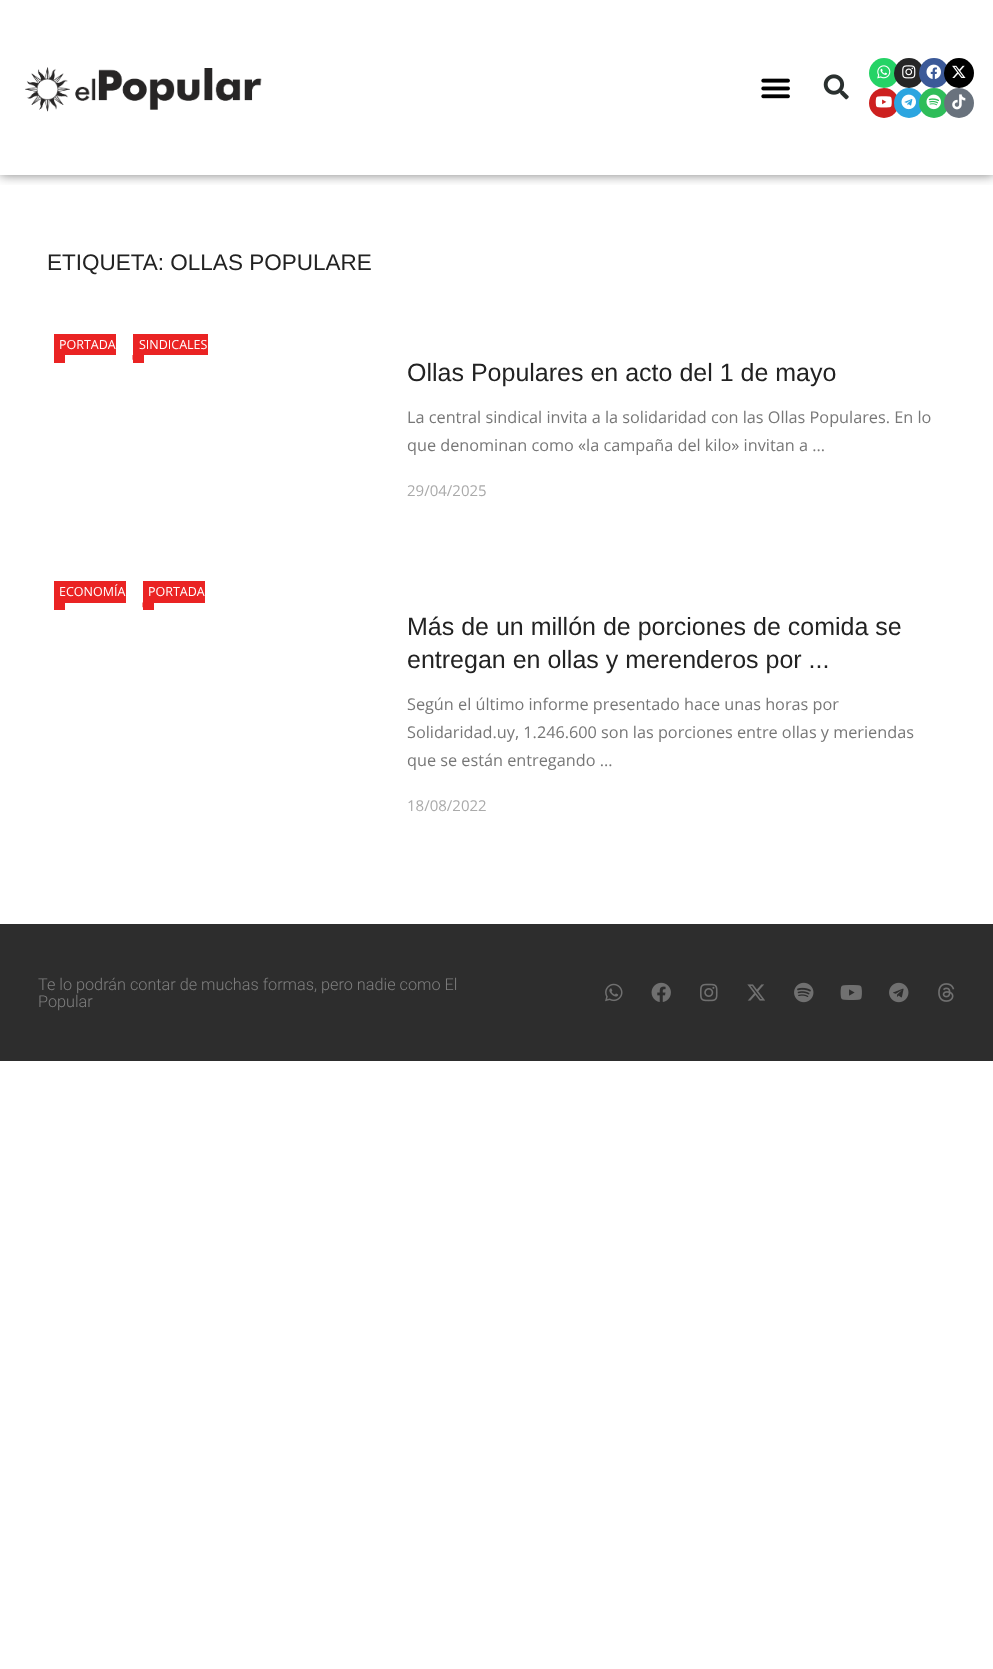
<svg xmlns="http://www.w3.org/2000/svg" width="993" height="1669">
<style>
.a{font:22.5px Liberation Sans;fill:#222}
.b{font:12.5px Open Sans;fill:#fff}
.c{font:25px Liberation Sans;fill:#222}
.d{font:16.25px Open Sans;fill:#777}
.e{font:15px Open Sans;fill:#aaa}
.f{font:300 16.25px Roboto;fill:#7f7f7f}
</style>
<defs>
<clipPath id="clip1"><path d="M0 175h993v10H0z"/></clipPath>
</defs>
<rect width="100%" height="100%" fill="#fff"/>
<g clip-path="url(#clip1)">
<path fill="#00000080" filter="blur(6px)" d="M0 0h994v175H0z"/>
</g>
<image href="1.png" x="25" y="67" width="237" height="45"/>
<image href="2.png" x="761" y="78" width="29" height="21"/>
<image href="3.png" x="823" y="74" width="26" height="26"/>
<circle fill="#25d366" cx="884" cy="73" r="15"/>
<image href="4.png" x="877" y="65" width="14" height="14"/>
<circle fill="#262626" cx="909" cy="73" r="15"/>
<image href="5.png" x="902" y="65" width="14" height="14"/>
<circle fill="#3b5998" cx="934" cy="73" r="15"/>
<image href="6.png" x="926" y="64" width="15" height="15"/>
<circle fill="#000" cx="959" cy="73" r="15"/>
<image href="7.png" x="952" y="65" width="14" height="13"/>
<circle fill="#cd201f" cx="884" cy="103" r="15"/>
<image href="8.png" x="875" y="96" width="17" height="12"/>
<circle fill="#2ca5e0" cx="909" cy="103" r="15"/>
<image href="9.png" x="901" y="94" width="15" height="16"/>
<circle fill="#2ebd59" cx="934" cy="103" r="15"/>
<image href="10.png" x="926" y="94" width="15" height="16"/>
<circle fill="#69727d" cx="959" cy="103" r="15"/>
<image href="11.png" x="952" y="94" width="14" height="16"/>
<path fill="#ea2323" d="M54 334h62v21H54z"/>
<path fill="#ea2323" d="M54 355h11v8H54z"/>
<path fill="#ea2323" d="M133 334h75v21H133z"/>
<path fill="#ea2323" d="M133 355h11v8H133z"/>
<path fill="#ea2323" d="M132.5 360v-5h5z"/>
<path fill="#ea2323" d="M54 581h72v22H54z"/>
<path fill="#ea2323" d="M54 603h11v7H54z"/>
<path fill="#ea2323" d="M143 581h62v22H143z"/>
<path fill="#ea2323" d="M143 603h11v7H143z"/>
<path fill="#ea2323" d="M142.5 607.5v-5h5z"/>
<path fill="#2d2d2d" d="M0 924h993v137H0z"/>
<image href="12.png" x="605" y="983" width="18" height="19"/>
<image href="13.png" x="651" y="982" width="20" height="20"/>
<image href="14.png" x="700" y="983" width="18" height="19"/>
<image href="15.png" x="747" y="984" width="18" height="17"/>
<image href="16.png" x="794" y="982" width="20" height="21"/>
<image href="17.png" x="840" y="985" width="22" height="15"/>
<image href="18.png" x="889" y="982" width="20" height="21"/>
<image href="19.png" x="938" y="983" width="17" height="19"/>
<text class="a" x="47" y="270">ETIQUETA: OLLAS POPULARE</text>
<text class="b" x="59" y="349">PORTADA</text>
<text class="b" x="139" y="349">SINDICALES</text>
<text class="c" x="407" y="381">Ollas Populares en acto del 1 de mayo</text>
<text class="d" x="407" y="423">La central sindical invita a la solidaridad con las Ollas Populares. En lo</text>
<text class="d" x="407" y="451">que denominan como «la campaña del kilo» invitan a ...</text>
<text class="e" x="407" y="496">29/04/2025</text>
<text class="b" x="59" y="596">ECONOMÍA</text>
<text class="b" x="148" y="596">PORTADA</text>
<text class="c" x="407" y="635">Más de un millón de porciones de comida se</text>
<text class="c" x="407" y="668">entregan en ollas y merenderos por ...</text>
<text class="d" x="407" y="710">Según el último informe presentado hace unas horas por</text>
<text class="d" x="407" y="738">Solidaridad.uy, 1.246.600 son las porciones entre ollas y meriendas</text>
<text class="d" x="407" y="766">que se están entregando ...</text>
<text class="e" x="407" y="811">18/08/2022</text>
<text class="f" x="38" y="990">Te lo podrán contar de muchas formas, pero nadie como El</text>
<text class="f" x="38" y="1007">Popular</text>
</svg>
